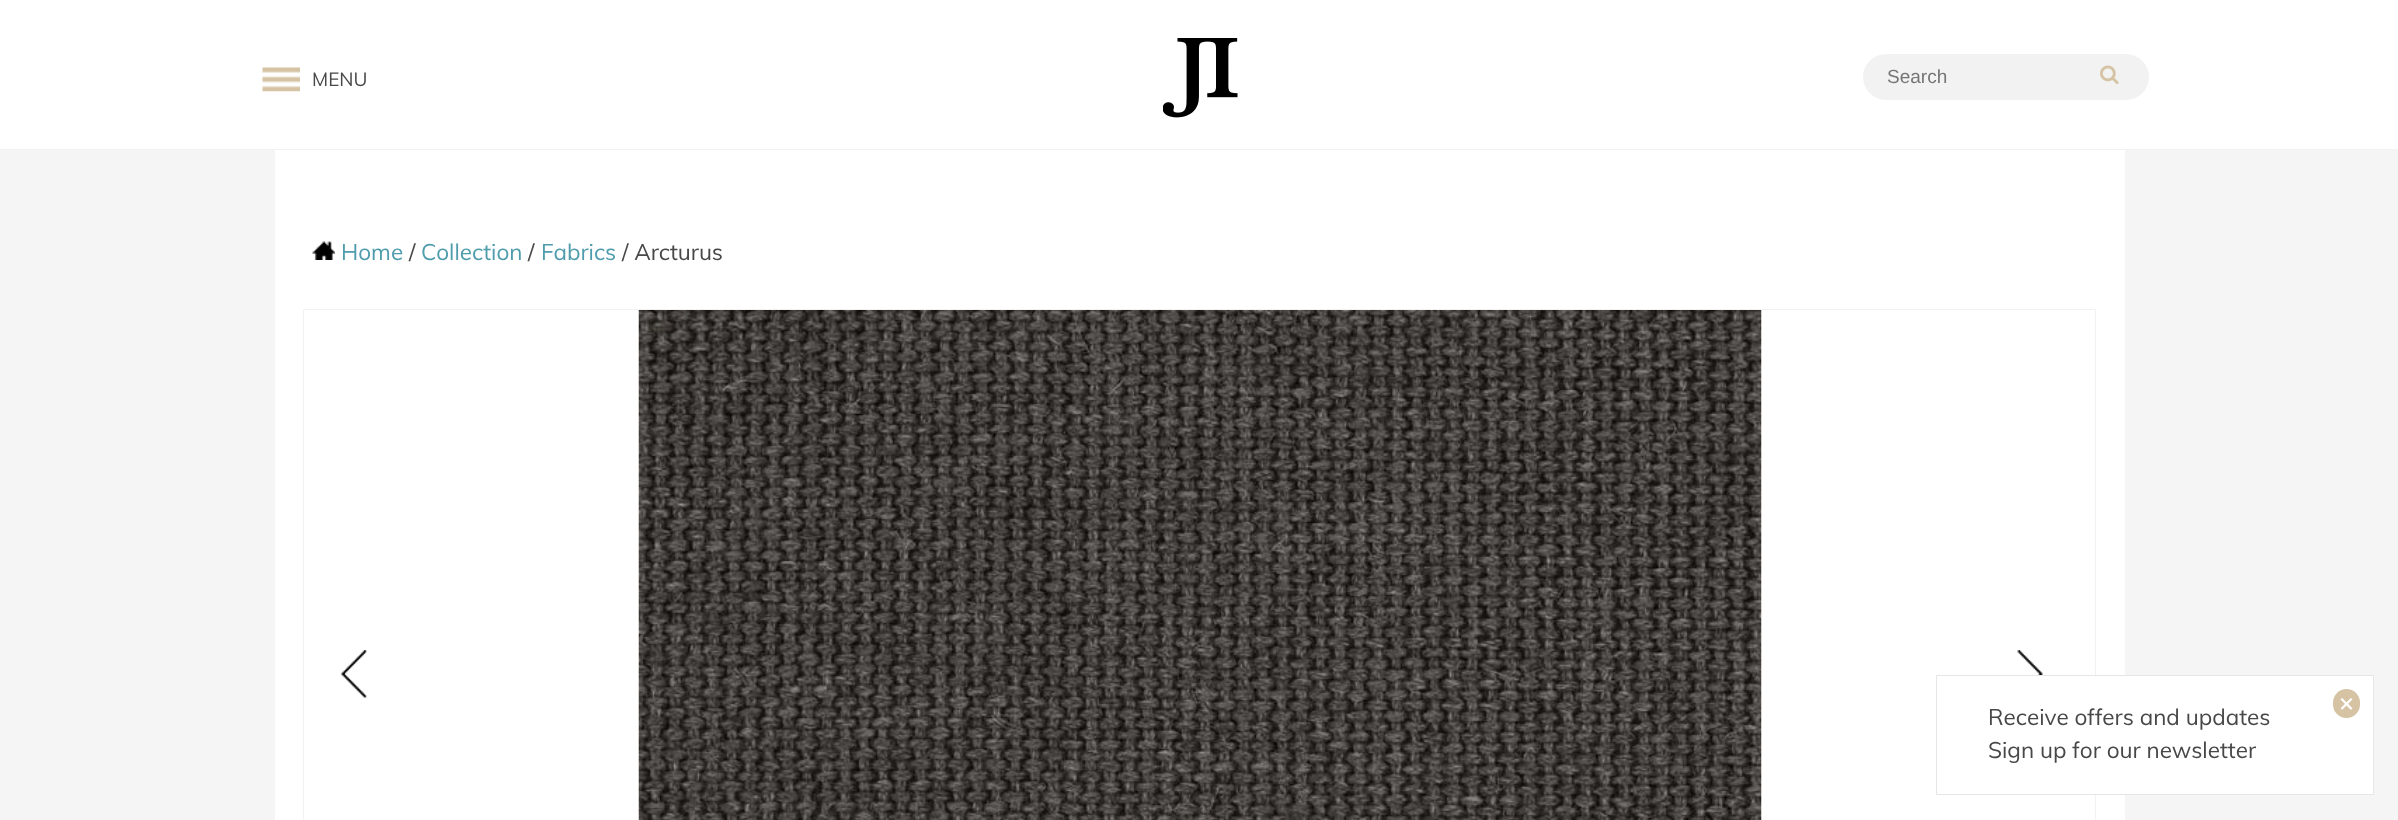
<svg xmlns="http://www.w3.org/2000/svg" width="2398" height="820">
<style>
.a{font:19px Muli;fill:#484848}
.b{font:19px Liberation Sans;fill:#757575}
.c{font:22.5px Muli;fill:#4e9cac}
.d{font:22.5px Muli;fill:#484848}
.e{font:bold 25px Muli;fill:#fff}
</style>
<rect width="100%" height="100%" fill="#f5f5f5"/>
<path fill="#fff" d="M0 0h2398v149H0z"/>
<path fill="#f2f2f2" d="M0 149h2398v1H0z"/>
<image href="1.png" x="262" y="67" width="38" height="25"/>
<image href="2.png" x="1163" y="38" width="75" height="80"/>
<rect fill="#f2f2f2" x="1863" y="54" width="286" height="46" rx="23"/>
<image href="3.png" x="2100" y="65" width="19" height="19"/>
<path fill="#fff" d="M275 150h1850v670H275z"/>
<image href="4.png" x="312" y="241" width="23" height="19"/>
<path fill="none" stroke="#f2f2f2" d="M303.5 309.5h1792v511H303.5z"/>
<image href="5.png" x="341" y="650" width="26" height="48"/>
<image href="6.png" x="638" y="310" width="1124" height="510"/>
<image href="7.png" x="2017" y="650" width="26" height="25"/>
<path fill="#fff" d="M2095 676h278v118H2095z"/>
<path fill="none" stroke="#e6e6e6" d="M1936.5 675.5h437v119H1936.5z"/>
<rect fill="#d5c3a3" x="2333" y="689" width="27" height="29" rx="13.5"/>
<text class="a" x="312" y="86">MENU</text>
<text class="b" x="1887" y="83">Search</text>
<text class="c" x="341" y="260">Home</text>
<text class="d" x="409" y="260">/</text>
<text class="c" x="421" y="260">Collection</text>
<text class="d" x="528" y="260">/</text>
<text class="c" x="541" y="260">Fabrics</text>
<text class="d" x="622" y="260">/ Arcturus</text>
<text class="e" x="2339" y="711">×</text>
<text class="d" x="1988" y="725">Receive offers and updates</text>
<text class="d" x="1988" y="758">Sign up for our newsletter</text>
</svg>
